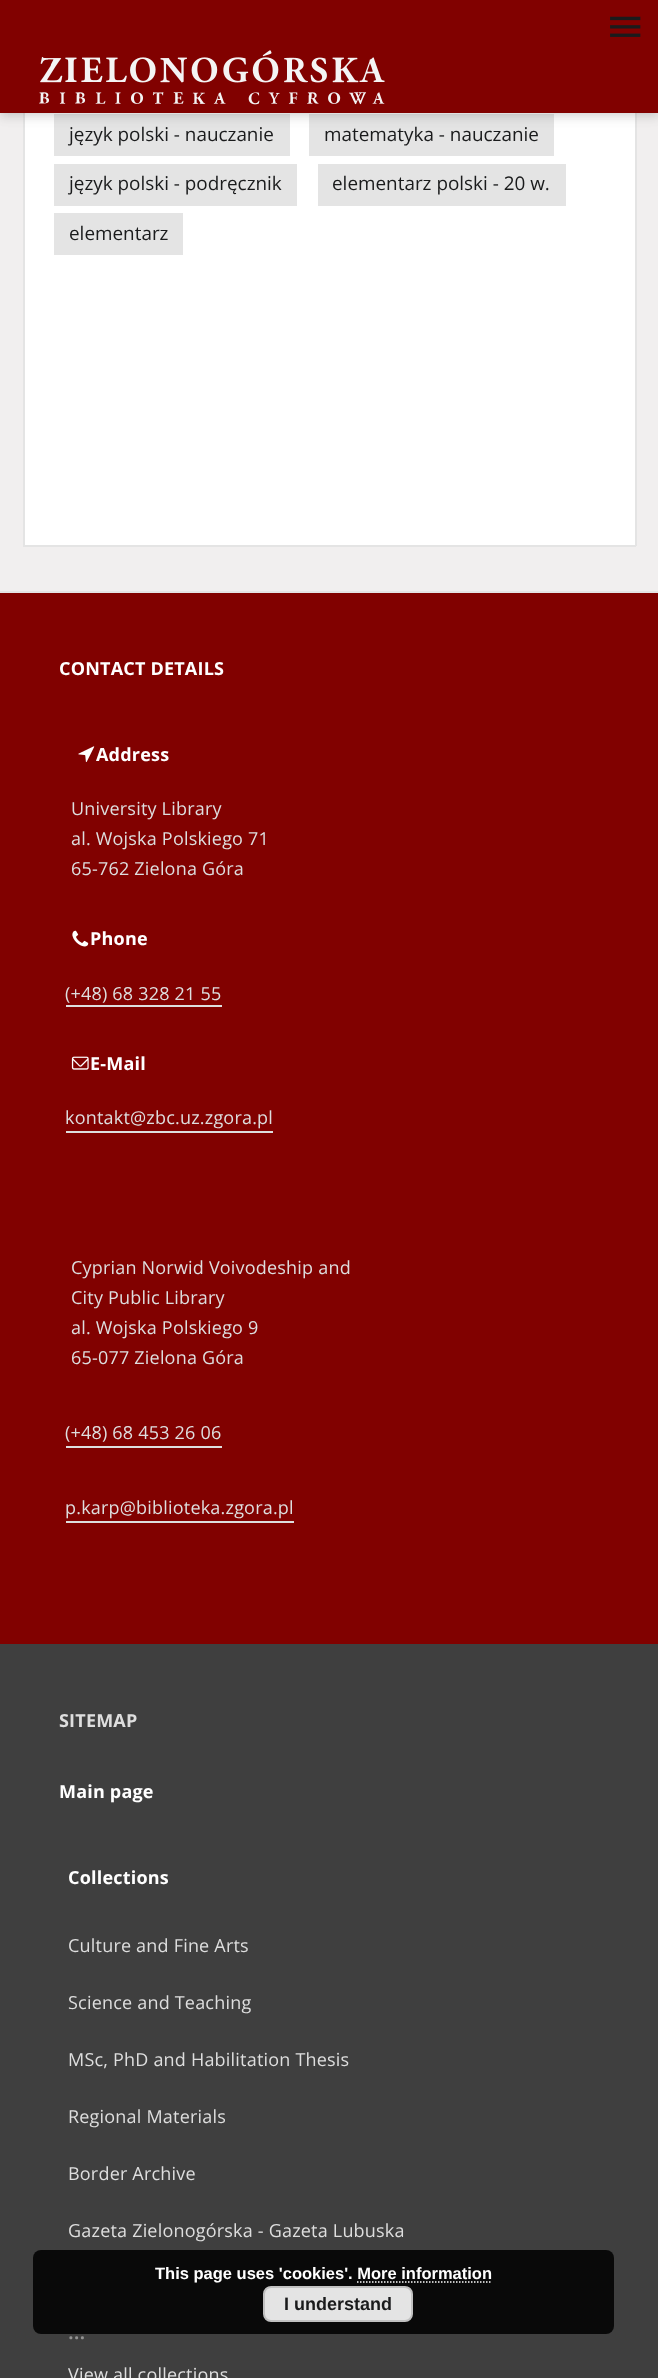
<svg xmlns="http://www.w3.org/2000/svg" width="658" height="2378" viewBox="0 0 658 2378">
  <defs>
    <filter id="blur1" x="-50%" y="-200%" width="200%" height="500%"><feGaussianBlur stdDeviation="7.5"/></filter>
    <filter id="blur2" x="-50%" y="-200%" width="200%" height="500%"><feGaussianBlur stdDeviation="4"/></filter>
    <filter id="blur3" x="-50%" y="-200%" width="200%" height="500%"><feGaussianBlur stdDeviation="3"/></filter>
  </defs>
  <rect width="100%" height="100%" fill="#f1efef"/>
  <rect x="25" y="113" width="610" height="432" fill="#ffffff"/>
  <rect x="635" y="113" width="2" height="433" fill="#e4e4e4"/>
  <rect x="23" y="545" width="613" height="2" fill="#e4e4e4"/>
  <rect x="23" y="113" width="2" height="433" fill="#e4e4e4"/>
  <rect x="54" y="114" width="236" height="42" fill="#e4e4e4"/>
  <rect x="309" y="114" width="245" height="42" fill="#e4e4e4"/>
  <rect x="0" y="2" width="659" height="112" fill="#000000" fill-opacity="0.08" filter="url(#blur1)"/>
  <rect x="0" y="6" width="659" height="113" fill="#000000" fill-opacity="0.06" filter="url(#blur2)"/>
  <rect x="2" y="5" width="655" height="109" fill="#000000" fill-opacity="0.06" filter="url(#blur3)"/>
  <rect x="0" y="0" width="658" height="113" fill="#810100"/>
  <image x="610" y="16" width="31" height="21" href="img1.png"/>
  <image x="39" y="50" width="346" height="55" href="img2.png"/>
  <text x="69" y="141" font-family="Open Sans" font-size="18.9" fill="#1a1b1c">język polski - nauczanie</text>
  <text x="324" y="141" font-family="Open Sans" font-size="18.9" fill="#1a1b1c">matematyka - nauczanie</text>
  <rect x="54" y="164" width="243" height="42" fill="#e4e4e4"/>
  <text x="69" y="190" font-family="Open Sans" font-size="18.9" fill="#1a1b1c">język polski - podręcznik</text>
  <rect x="318" y="164" width="248" height="42" fill="#e4e4e4"/>
  <text x="332" y="190" font-family="Open Sans" font-size="18.9" fill="#1a1b1c">elementarz polski - 20 w.</text>
  <rect x="54" y="213" width="129" height="42" fill="#e4e4e4"/>
  <text x="69" y="240" font-family="Open Sans" font-size="18.9" fill="#1a1b1c">elementarz</text>
  <rect x="0" y="593" width="658" height="1051" fill="#810100"/>
  <rect x="0" y="591" width="658" height="2" fill="#e4e4e4"/>
  <text x="59" y="675" font-family="Open Sans" font-size="18" font-weight="bold" letter-spacing="0.2" fill="#ffffff">CONTACT DETAILS</text>
  <image x="78" y="746" width="17" height="16" href="img3.png"/>
  <text x="96" y="761" font-family="Open Sans" font-size="18" font-weight="bold" letter-spacing="0.2" fill="#ffffff">Address</text>
  <text x="71" y="815" font-family="Open Sans" font-size="18" letter-spacing="0.2" fill="#dedede">University Library</text>
  <text x="71" y="845" font-family="Open Sans" font-size="18" letter-spacing="0.2" fill="#dedede">al. Wojska Polskiego 71</text>
  <text x="71" y="875" font-family="Open Sans" font-size="18" letter-spacing="0.2" fill="#dedede">65-762 Zielona Góra</text>
  <image x="72" y="930" width="17" height="17" href="img4.png"/>
  <text x="90" y="945" font-family="Open Sans" font-size="18" font-weight="bold" letter-spacing="0.2" fill="#ffffff">Phone</text>
  <text x="65" y="1000" font-family="Open Sans" font-size="18" letter-spacing="0.2" fill="#dedede">(+48) 68 328 21 55</text>
  <rect x="66" y="1005" width="156" height="2" fill="#dedede"/>
  <image x="71" y="1056" width="18" height="14" href="img5.png"/>
  <text x="90" y="1070" font-family="Open Sans" font-size="18" font-weight="bold" letter-spacing="0.2" fill="#ffffff">E-Mail</text>
  <text x="65" y="1124" font-family="Open Sans" font-size="18" letter-spacing="0.2" fill="#dedede">kontakt@zbc.uz.zgora.pl</text>
  <rect x="66" y="1131" width="207" height="2" fill="#dedede"/>
  <text x="71" y="1274" font-family="Open Sans" font-size="18" letter-spacing="0.2" fill="#dedede">Cyprian Norwid Voivodeship and</text>
  <text x="71" y="1304" font-family="Open Sans" font-size="18" letter-spacing="0.2" fill="#dedede">City Public Library</text>
  <text x="71" y="1334" font-family="Open Sans" font-size="18" letter-spacing="0.2" fill="#dedede">al. Wojska Polskiego 9</text>
  <text x="71" y="1364" font-family="Open Sans" font-size="18" letter-spacing="0.2" fill="#dedede">65-077 Zielona Góra</text>
  <text x="65" y="1439" font-family="Open Sans" font-size="18" letter-spacing="0.2" fill="#dedede">(+48) 68 453 26 06</text>
  <rect x="66" y="1446" width="156" height="2" fill="#dedede"/>
  <text x="65" y="1514" font-family="Open Sans" font-size="18" letter-spacing="0.2" fill="#dedede">p.karp@biblioteka.zgora.pl</text>
  <rect x="66" y="1521" width="228" height="2" fill="#dedede"/>
  <rect x="0" y="1644" width="658" height="734" fill="#3f3f3f"/>
  <text x="59" y="1727" font-family="Open Sans" font-size="18" font-weight="bold" letter-spacing="0.2" fill="#dedede">SITEMAP</text>
  <text x="59" y="1798" font-family="Open Sans" font-size="18" font-weight="bold" letter-spacing="0.2" fill="#ffffff">Main page</text>
  <text x="68" y="1884" font-family="Open Sans" font-size="18" font-weight="bold" letter-spacing="0.2" fill="#ffffff">Collections</text>
  <text x="68" y="1952" font-family="Open Sans" font-size="18" letter-spacing="0.2" fill="#dedede">Culture and Fine Arts</text>
  <text x="68" y="2009" font-family="Open Sans" font-size="18" letter-spacing="0.2" fill="#dedede">Science and Teaching</text>
  <text x="68" y="2066" font-family="Open Sans" font-size="18" letter-spacing="0.2" fill="#dedede">MSc, PhD and Habilitation Thesis</text>
  <text x="68" y="2123" font-family="Open Sans" font-size="18" letter-spacing="0.2" fill="#dedede">Regional Materials</text>
  <text x="68" y="2180" font-family="Open Sans" font-size="18" letter-spacing="0.2" fill="#dedede">Border Archive</text>
  <text x="68" y="2237" font-family="Open Sans" font-size="18" letter-spacing="0.2" fill="#dedede">Gazeta Zielonogórska - Gazeta Lubuska</text>
  <text x="68" y="2339" font-family="Open Sans" font-size="21" font-weight="600" fill="#939393">...</text>
  <text x="68" y="2381" font-family="Open Sans" font-size="18" letter-spacing="0.2" fill="#dedede">View all collections</text>
  <rect x="33" y="2250" width="581" height="84" rx="8" fill="#000000" fill-opacity="0.85"/>
  <text x="155" y="2279" font-family="Liberation Sans" font-size="16.5" font-weight="bold" fill="#ffffff">This page uses 'cookies'. More information</text>
  <path d="M357 2282H492" fill="none" stroke="#ffffff" stroke-width="1.5" stroke-dasharray="1.5 1.5"/>
  <rect x="264" y="2287" width="148" height="34" rx="7" fill="#e4e4e4" stroke="#c1c1c1" stroke-width="2"/>
  <text x="284" y="2310" font-family="Liberation Sans" font-size="18" font-weight="bold" fill="#1a1b1c">I understand</text>
</svg>
